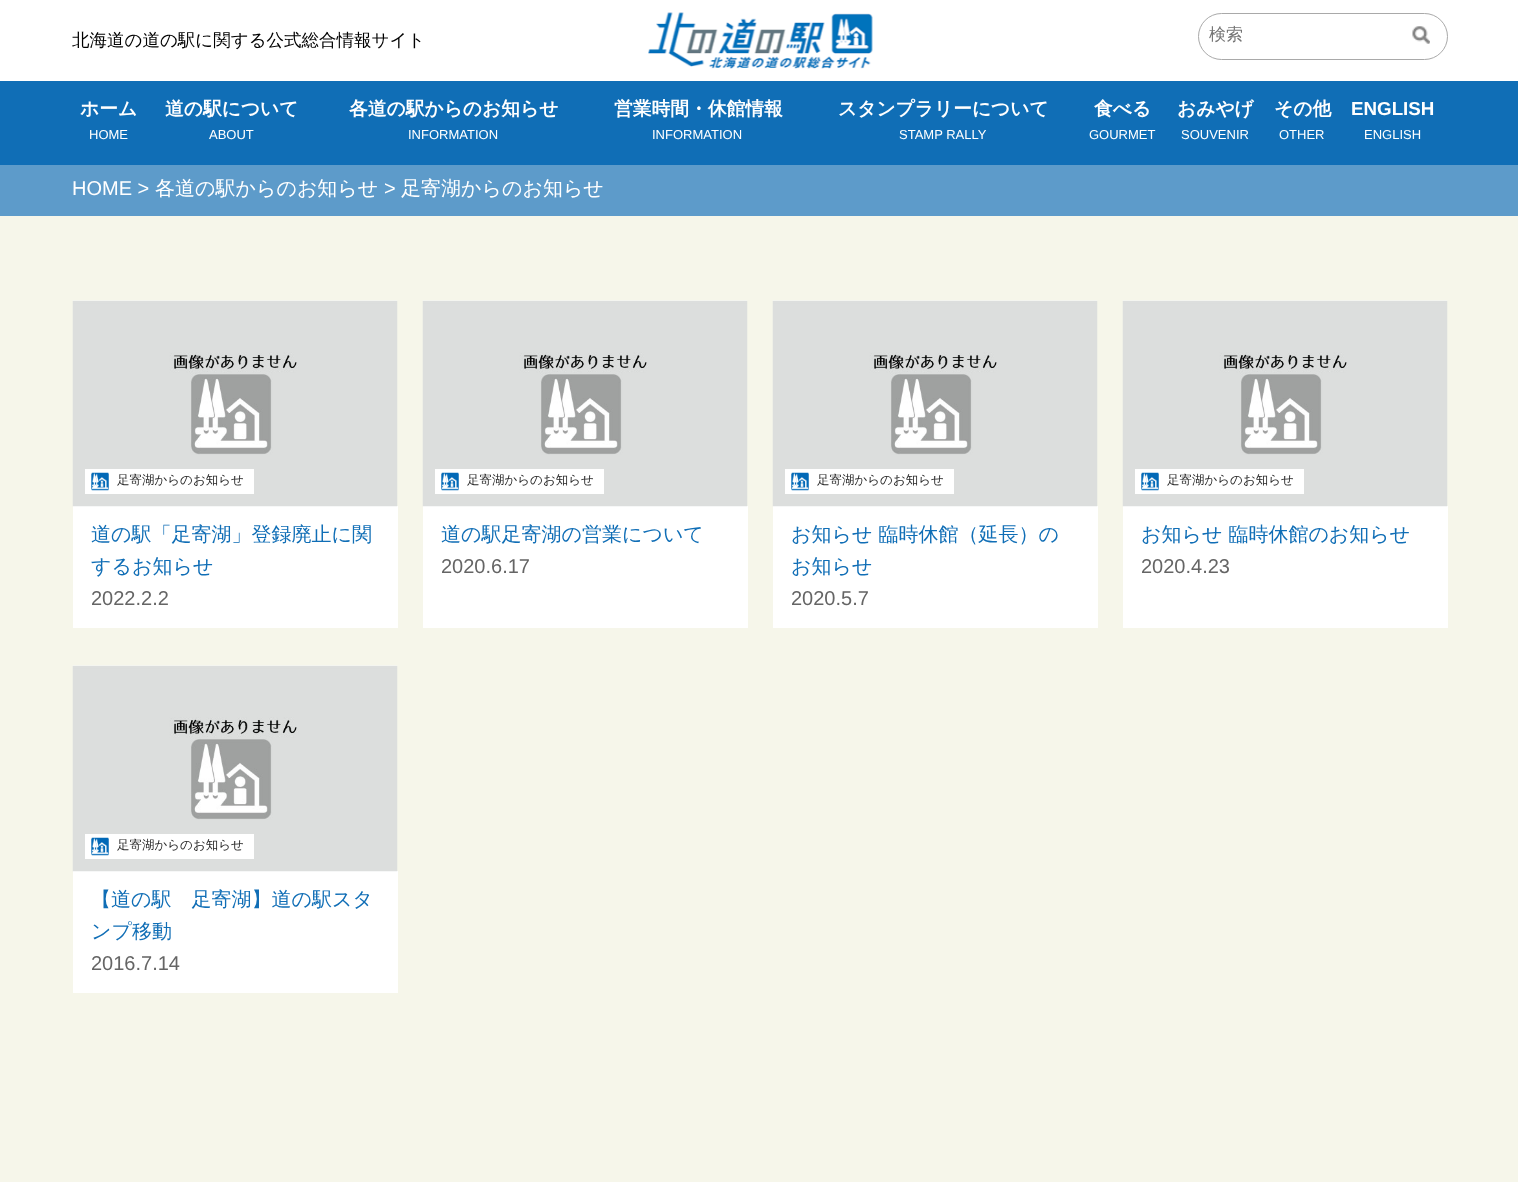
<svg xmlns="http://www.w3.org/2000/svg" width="1518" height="1182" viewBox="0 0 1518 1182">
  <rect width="100%" height="100%" fill="#f6f6ea"/>
  <rect x="0" y="0" width="1518" height="81" fill="#ffffff"/>
  <text x="72" y="46" font-family="WenQuanYi Zen Hei" font-size="17.5" font-weight="500" fill="#000000">北海道の道の駅に関する公式総合情報サイト</text>
  <image x="648" y="12" width="225" height="57" href="img1.png"/>
  <rect x="1198.5" y="13.5" width="249" height="46" rx="23" fill="none" stroke="#a9a9a9"/>
  <text x="1209" y="40" font-family="WenQuanYi Zen Hei" font-size="17" font-weight="500" fill="#757575">検索</text>
  <image x="1412" y="26" width="18" height="18" href="img2.png"/>
  <rect x="0" y="81" width="1518" height="84" fill="#106eb6"/>
  <text x="80" y="115" font-family="WenQuanYi Zen Hei" font-size="18.75" font-weight="bold" fill="#ffffff">ホーム</text>
  <text x="89" y="139" font-family="Liberation Sans" font-size="13" fill="#ffffff">HOME</text>
  <text x="165" y="115" font-family="WenQuanYi Zen Hei" font-size="18.75" font-weight="bold" fill="#ffffff">道の駅について</text>
  <text x="209" y="139" font-family="Liberation Sans" font-size="13" fill="#ffffff">ABOUT</text>
  <text x="349" y="115" font-family="WenQuanYi Zen Hei" font-size="18.75" font-weight="bold" fill="#ffffff">各道の駅からのお知らせ</text>
  <text x="408" y="139" font-family="Liberation Sans" font-size="13" fill="#ffffff">INFORMATION</text>
  <text x="614" y="115" font-family="WenQuanYi Zen Hei" font-size="18.75" font-weight="bold" fill="#ffffff">営業時間・休館情報</text>
  <text x="652" y="139" font-family="Liberation Sans" font-size="13" fill="#ffffff">INFORMATION</text>
  <text x="838" y="115" font-family="WenQuanYi Zen Hei" font-size="18.75" font-weight="bold" fill="#ffffff">スタンプラリーについて</text>
  <text x="899" y="139" font-family="Liberation Sans" font-size="13" fill="#ffffff">STAMP RALLY</text>
  <text x="1094" y="115" font-family="WenQuanYi Zen Hei" font-size="18.75" font-weight="bold" fill="#ffffff">食べる</text>
  <text x="1089" y="139" font-family="Liberation Sans" font-size="13" fill="#ffffff">GOURMET</text>
  <text x="1177" y="115" font-family="WenQuanYi Zen Hei" font-size="18.75" font-weight="bold" fill="#ffffff">おみやげ</text>
  <text x="1181" y="139" font-family="Liberation Sans" font-size="13" fill="#ffffff">SOUVENIR</text>
  <text x="1274" y="115" font-family="WenQuanYi Zen Hei" font-size="18.75" font-weight="bold" fill="#ffffff">その他</text>
  <text x="1279" y="139" font-family="Liberation Sans" font-size="13" fill="#ffffff">OTHER</text>
  <text x="1351" y="115" font-family="Liberation Sans" font-size="18.75" font-weight="bold" fill="#ffffff">ENGLISH</text>
  <text x="1364" y="139" font-family="Liberation Sans" font-size="13" fill="#ffffff">ENGLISH</text>
  <rect x="0" y="165" width="1518" height="51" fill="#5d9bca"/>
  <text x="72" y="195" font-family="Liberation Sans" font-size="20" fill="#ffffff">HOME &gt;</text>
  <text x="155" y="195" font-family="WenQuanYi Zen Hei" font-size="20" font-weight="500" fill="#ffffff">各道の駅からのお知らせ</text>
  <text x="384" y="195" font-family="Liberation Sans" font-size="20" fill="#ffffff">&gt;</text>
  <text x="401" y="195" font-family="WenQuanYi Zen Hei" font-size="20" font-weight="500" fill="#ffffff">足寄湖からのお知らせ</text>
  <rect x="73" y="506" width="325" height="122" fill="#ffffff"/>
  <image x="72" y="300" width="326" height="207" href="img3.png"/>
  <rect x="85" y="469" width="169" height="25" fill="#ffffff"/>
  <image x="91" y="472" width="18" height="19" href="img4.png"/>
  <text x="117" y="484" font-family="WenQuanYi Zen Hei" font-size="12.5" font-weight="500" fill="#272727">足寄湖からのお知らせ</text>
  <text x="91" y="541" font-family="WenQuanYi Zen Hei" font-size="20" font-weight="500" fill="#106eb6">道の駅「足寄湖」登録廃止に関</text>
  <text x="91" y="573" font-family="WenQuanYi Zen Hei" font-size="20" font-weight="500" fill="#106eb6">するお知らせ</text>
  <text x="91" y="605" font-family="Liberation Sans" font-size="20" fill="#656565">2022.2.2</text>
  <rect x="423" y="506" width="325" height="122" fill="#ffffff"/>
  <image x="422" y="300" width="326" height="207" href="img3.png"/>
  <rect x="435" y="469" width="169" height="25" fill="#ffffff"/>
  <image x="441" y="472" width="18" height="19" href="img4.png"/>
  <text x="467" y="484" font-family="WenQuanYi Zen Hei" font-size="12.5" font-weight="500" fill="#272727">足寄湖からのお知らせ</text>
  <text x="441" y="541" font-family="WenQuanYi Zen Hei" font-size="20" font-weight="500" fill="#106eb6">道の駅足寄湖の営業について</text>
  <text x="441" y="573" font-family="Liberation Sans" font-size="20" fill="#656565">2020.6.17</text>
  <rect x="773" y="506" width="325" height="122" fill="#ffffff"/>
  <image x="772" y="300" width="326" height="207" href="img3.png"/>
  <rect x="785" y="469" width="169" height="25" fill="#ffffff"/>
  <image x="791" y="472" width="18" height="19" href="img4.png"/>
  <text x="817" y="484" font-family="WenQuanYi Zen Hei" font-size="12.5" font-weight="500" fill="#272727">足寄湖からのお知らせ</text>
  <text x="791" y="541" font-family="WenQuanYi Zen Hei" font-size="20" font-weight="500" fill="#106eb6">お知らせ 臨時休館（延長）の</text>
  <text x="791" y="573" font-family="WenQuanYi Zen Hei" font-size="20" font-weight="500" fill="#106eb6">お知らせ</text>
  <text x="791" y="605" font-family="Liberation Sans" font-size="20" fill="#656565">2020.5.7</text>
  <rect x="1123" y="506" width="325" height="122" fill="#ffffff"/>
  <image x="1122" y="300" width="326" height="207" href="img3.png"/>
  <rect x="1135" y="469" width="169" height="25" fill="#ffffff"/>
  <image x="1141" y="472" width="18" height="19" href="img4.png"/>
  <text x="1167" y="484" font-family="WenQuanYi Zen Hei" font-size="12.5" font-weight="500" fill="#272727">足寄湖からのお知らせ</text>
  <text x="1141" y="541" font-family="WenQuanYi Zen Hei" font-size="20" font-weight="500" fill="#106eb6">お知らせ 臨時休館のお知らせ</text>
  <text x="1141" y="573" font-family="Liberation Sans" font-size="20" fill="#656565">2020.4.23</text>
  <rect x="73" y="871" width="325" height="122" fill="#ffffff"/>
  <image x="72" y="665" width="326" height="207" href="img3.png"/>
  <rect x="85" y="834" width="169" height="25" fill="#ffffff"/>
  <image x="91" y="837" width="18" height="19" href="img4.png"/>
  <text x="117" y="849" font-family="WenQuanYi Zen Hei" font-size="12.5" font-weight="500" fill="#272727">足寄湖からのお知らせ</text>
  <text x="91" y="906" font-family="WenQuanYi Zen Hei" font-size="20" font-weight="500" fill="#106eb6">【道の駅　足寄湖】道の駅スタ</text>
  <text x="91" y="938" font-family="WenQuanYi Zen Hei" font-size="20" font-weight="500" fill="#106eb6">ンプ移動</text>
  <text x="91" y="970" font-family="Liberation Sans" font-size="20" fill="#656565">2016.7.14</text>
</svg>
